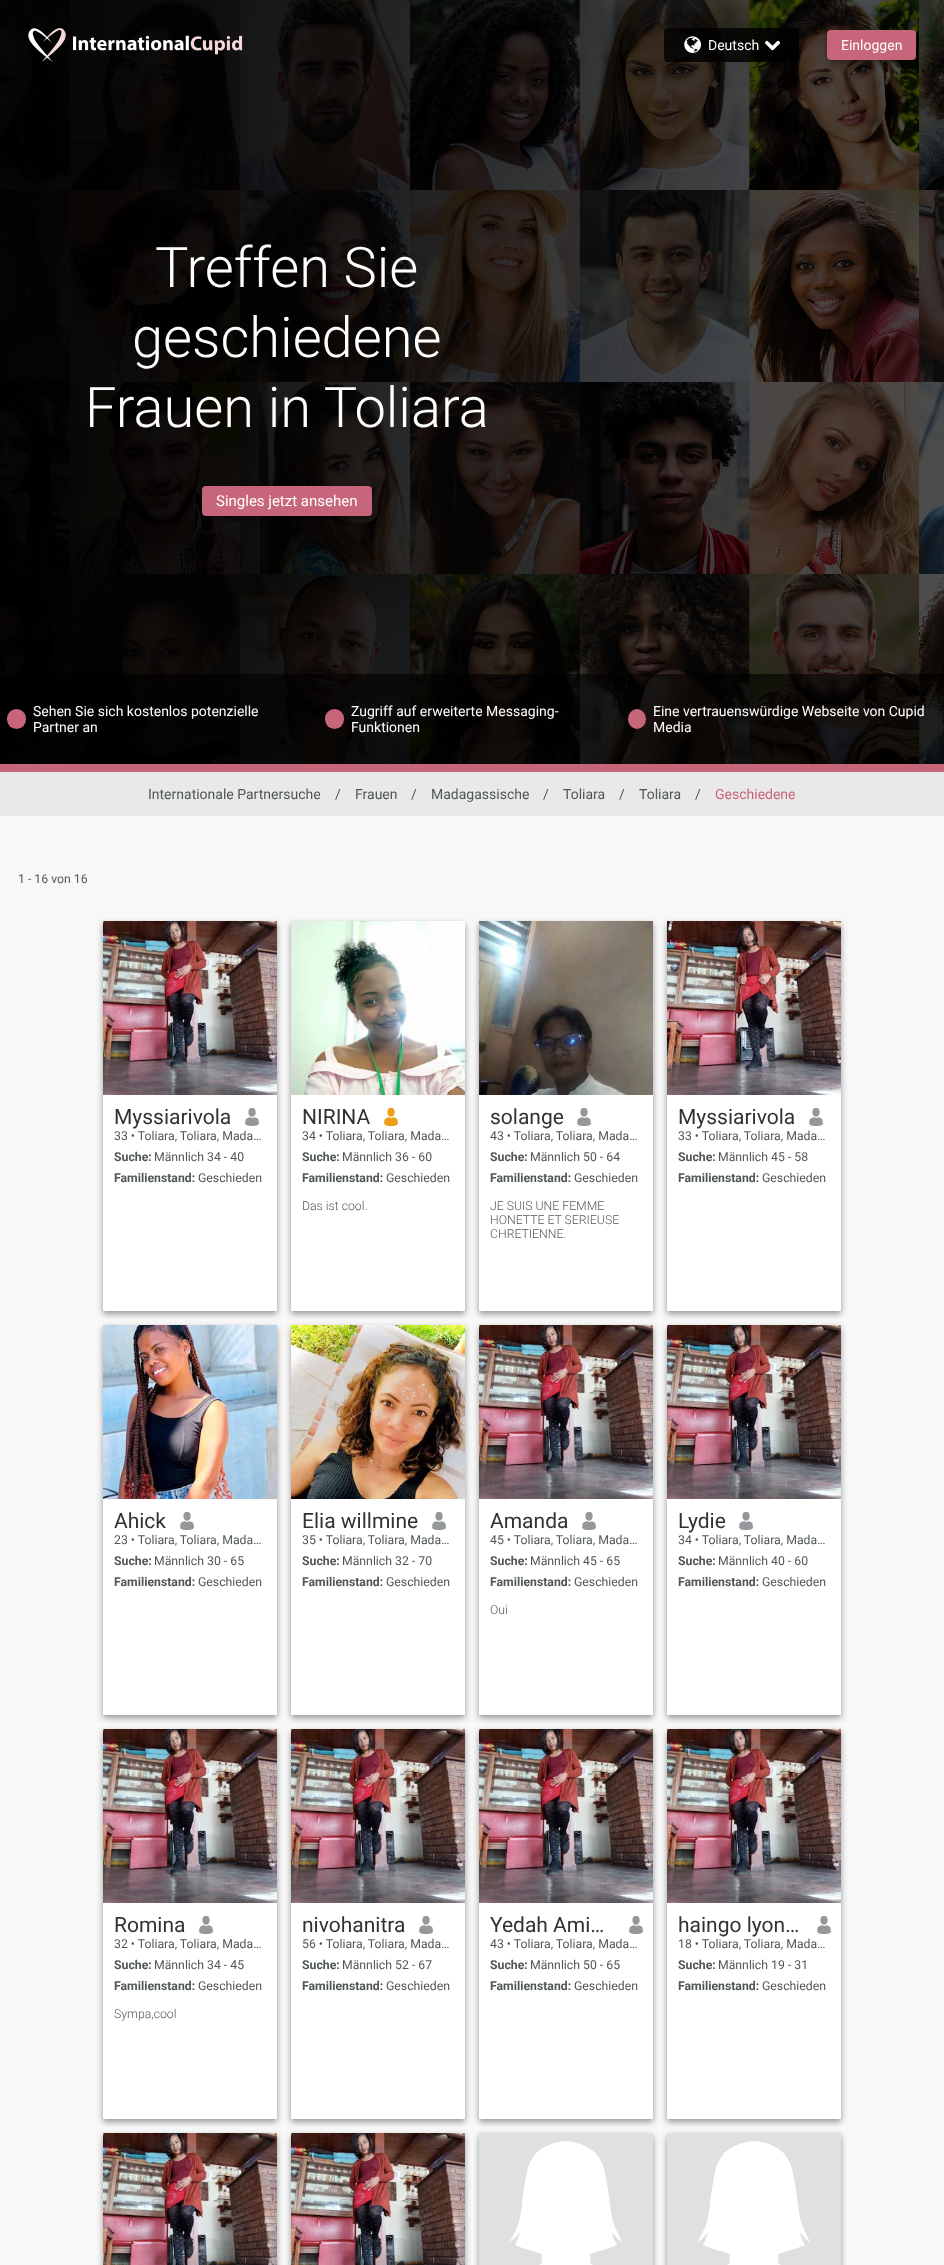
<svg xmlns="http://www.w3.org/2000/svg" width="944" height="2265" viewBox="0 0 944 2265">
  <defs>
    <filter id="blur1" x="-50%" y="-200%" width="200%" height="500%"><feGaussianBlur stdDeviation="3"/></filter>
  </defs>
  <rect width="100%" height="100%" fill="#f8f8f8"/>
  <image x="0" y="0" width="944" height="764" href="img5.png"/>
  <image x="28" y="28" width="38" height="34" href="img1.png"/>
  <image x="73" y="35" width="170" height="20" href="img2.png"/>
  <rect x="664" y="28" width="135" height="34" rx="4" fill="#000000" fill-opacity="0.8"/>
  <image x="684" y="36" width="17" height="17" href="img3.png"/>
  <text x="708" y="50" font-family="Roboto" font-size="14" fill="#ffffff">Deutsch</text>
  <image x="765" y="40" width="15" height="11" href="img4.png"/>
  <rect x="827" y="33" width="89" height="30" rx="4" fill="#000000" fill-opacity="0.4" filter="url(#blur1)"/>
  <rect x="827" y="30" width="89" height="30" rx="4" fill="#c7657b"/>
  <text x="841" y="50" font-family="Roboto" font-size="14" fill="#ffffff">Einloggen</text>
  <text x="155" y="287" font-family="Roboto" font-size="56" font-weight="300" fill="#ffffff">Treffen Sie</text>
  <text x="132" y="357" font-family="Roboto" font-size="56" font-weight="300" fill="#ffffff">geschiedene</text>
  <text x="85" y="427" font-family="Roboto" font-size="56" font-weight="300" fill="#ffffff">Frauen in Toliara</text>
  <rect x="202" y="489" width="170" height="30" rx="4" fill="#000000" fill-opacity="0.4" filter="url(#blur1)"/>
  <rect x="202" y="486" width="170" height="30" rx="4" fill="#c7657b"/>
  <text x="216" y="506" font-family="Roboto" font-size="15" fill="#ffffff">Singles jetzt ansehen</text>
  <rect x="0" y="674" width="944" height="90" fill="#000000" fill-opacity="0.6"/>
  <rect x="7" y="709" width="19" height="20" rx="9.5" fill="#c7657b"/>
  <text x="33" y="716" font-family="Roboto" font-size="14" fill="#ffffff">Sehen Sie sich kostenlos potenzielle</text>
  <text x="33" y="732" font-family="Roboto" font-size="14" fill="#ffffff">Partner an</text>
  <rect x="325" y="709" width="19" height="20" rx="9.5" fill="#c7657b"/>
  <text x="351" y="716" font-family="Roboto" font-size="14" fill="#ffffff">Zugriff auf erweiterte Messaging-</text>
  <text x="351" y="732" font-family="Roboto" font-size="14" fill="#ffffff">Funktionen</text>
  <ellipse cx="637" cy="719" rx="9" ry="10" fill="#c7657b"/>
  <text x="653" y="716" font-family="Roboto" font-size="14" fill="#ffffff">Eine vertrauenswürdige Webseite von Cupid</text>
  <text x="653" y="732" font-family="Roboto" font-size="14" fill="#ffffff">Media</text>
  <rect x="0" y="764" width="944" height="8" fill="#c7657b"/>
  <rect x="0" y="772" width="944" height="44" fill="#e9e9e9"/>
  <text x="148" y="799" font-family="Roboto" font-size="14" fill="#505656">Internationale Partnersuche</text>
  <text x="335" y="799" font-family="Roboto" font-size="14" fill="#505656">/</text>
  <text x="355" y="799" font-family="Roboto" font-size="14" fill="#505656">Frauen</text>
  <text x="411" y="799" font-family="Roboto" font-size="14" fill="#505656">/</text>
  <text x="431" y="799" font-family="Roboto" font-size="14" fill="#505656">Madagassische</text>
  <text x="543" y="799" font-family="Roboto" font-size="14" fill="#505656">/</text>
  <text x="563" y="799" font-family="Roboto" font-size="14" fill="#505656">Toliara</text>
  <text x="619" y="799" font-family="Roboto" font-size="14" fill="#505656">/</text>
  <text x="639" y="799" font-family="Roboto" font-size="14" fill="#505656">Toliara</text>
  <text x="695" y="799" font-family="Roboto" font-size="14" fill="#505656">/</text>
  <text x="715" y="799" font-family="Roboto" font-size="14" fill="#c7657b">Geschiedene</text>
  <text x="18" y="883" font-family="Roboto" font-size="12.25" fill="#505656">1 - 16 von 16</text>
  <rect x="103" y="924" width="174" height="390" fill="#000000" fill-opacity="0.4" filter="url(#blur1)"/>
  <rect x="103" y="1095" width="174" height="216" fill="#ffffff"/>
  <image x="103" y="921" width="174" height="174" href="img6.png"/>
  <text x="114" y="1124" font-family="Roboto" font-size="21" fill="#323232">Myssiarivola</text>
  <image x="245" y="1108" width="14" height="18" href="img7.png"/>
  <text x="114" y="1140" font-family="Roboto" font-size="12.25" fill="#505656">33 • Toliara, Toliara, Mada…</text>
  <text x="114" y="1161" font-family="Roboto" font-size="12.25" font-weight="bold" fill="#505656">Suche:</text>
  <text x="154" y="1161" font-family="Roboto" font-size="12.25" fill="#505656">Männlich 34 - 40</text>
  <text x="114" y="1182" font-family="Roboto" font-size="12.25" font-weight="bold" fill="#505656">Familienstand:</text>
  <text x="198" y="1182" font-family="Roboto" font-size="12.25" fill="#505656">Geschieden</text>
  <rect x="291" y="924" width="174" height="390" fill="#000000" fill-opacity="0.4" filter="url(#blur1)"/>
  <rect x="291" y="1095" width="174" height="216" fill="#ffffff"/>
  <image x="291" y="921" width="174" height="174" href="img8.png"/>
  <text x="302" y="1124" font-family="Roboto" font-size="21" fill="#323232">NIRINA</text>
  <image x="384" y="1108" width="14" height="18" href="img9.png"/>
  <text x="302" y="1140" font-family="Roboto" font-size="12.25" fill="#505656">34 • Toliara, Toliara, Mada…</text>
  <text x="302" y="1161" font-family="Roboto" font-size="12.25" font-weight="bold" fill="#505656">Suche:</text>
  <text x="342" y="1161" font-family="Roboto" font-size="12.25" fill="#505656">Männlich 36 - 60</text>
  <text x="302" y="1182" font-family="Roboto" font-size="12.25" font-weight="bold" fill="#505656">Familienstand:</text>
  <text x="386" y="1182" font-family="Roboto" font-size="12.25" fill="#505656">Geschieden</text>
  <text x="302" y="1210" font-family="Roboto" font-size="12.25" font-weight="300" fill="#505656">Das ist cool.</text>
  <rect x="479" y="924" width="174" height="390" fill="#000000" fill-opacity="0.4" filter="url(#blur1)"/>
  <rect x="479" y="1095" width="174" height="216" fill="#ffffff"/>
  <image x="479" y="921" width="174" height="174" href="img10.png"/>
  <text x="490" y="1124" font-family="Roboto" font-size="21" fill="#323232">solange</text>
  <image x="577" y="1108" width="14" height="18" href="img11.png"/>
  <text x="490" y="1140" font-family="Roboto" font-size="12.25" fill="#505656">43 • Toliara, Toliara, Mada…</text>
  <text x="490" y="1161" font-family="Roboto" font-size="12.25" font-weight="bold" fill="#505656">Suche:</text>
  <text x="530" y="1161" font-family="Roboto" font-size="12.25" fill="#505656">Männlich 50 - 64</text>
  <text x="490" y="1182" font-family="Roboto" font-size="12.25" font-weight="bold" fill="#505656">Familienstand:</text>
  <text x="574" y="1182" font-family="Roboto" font-size="12.25" fill="#505656">Geschieden</text>
  <text x="490" y="1210" font-family="Roboto" font-size="12.25" font-weight="300" fill="#505656">JE SUIS UNE FEMME</text>
  <text x="490" y="1224" font-family="Roboto" font-size="12.25" font-weight="300" fill="#505656">HONETTE ET SERIEUSE</text>
  <text x="490" y="1238" font-family="Roboto" font-size="12.25" font-weight="300" fill="#505656">CHRETIENNE.</text>
  <rect x="667" y="924" width="174" height="390" fill="#000000" fill-opacity="0.4" filter="url(#blur1)"/>
  <rect x="667" y="1095" width="174" height="216" fill="#ffffff"/>
  <image x="667" y="921" width="174" height="174" href="img12.png"/>
  <text x="678" y="1124" font-family="Roboto" font-size="21" fill="#323232">Myssiarivola</text>
  <image x="809" y="1108" width="14" height="18" href="img11.png"/>
  <text x="678" y="1140" font-family="Roboto" font-size="12.25" fill="#505656">33 • Toliara, Toliara, Mada…</text>
  <text x="678" y="1161" font-family="Roboto" font-size="12.25" font-weight="bold" fill="#505656">Suche:</text>
  <text x="718" y="1161" font-family="Roboto" font-size="12.25" fill="#505656">Männlich 45 - 58</text>
  <text x="678" y="1182" font-family="Roboto" font-size="12.25" font-weight="bold" fill="#505656">Familienstand:</text>
  <text x="762" y="1182" font-family="Roboto" font-size="12.25" fill="#505656">Geschieden</text>
  <rect x="103" y="1328" width="174" height="390" fill="#000000" fill-opacity="0.4" filter="url(#blur1)"/>
  <rect x="103" y="1499" width="174" height="216" fill="#ffffff"/>
  <image x="103" y="1325" width="174" height="174" href="img13.png"/>
  <text x="114" y="1528" font-family="Roboto" font-size="21" fill="#323232">Ahick</text>
  <image x="180" y="1512" width="14" height="18" href="img14.png"/>
  <text x="114" y="1544" font-family="Roboto" font-size="12.25" fill="#505656">23 • Toliara, Toliara, Mada…</text>
  <text x="114" y="1565" font-family="Roboto" font-size="12.25" font-weight="bold" fill="#505656">Suche:</text>
  <text x="154" y="1565" font-family="Roboto" font-size="12.25" fill="#505656">Männlich 30 - 65</text>
  <text x="114" y="1586" font-family="Roboto" font-size="12.25" font-weight="bold" fill="#505656">Familienstand:</text>
  <text x="198" y="1586" font-family="Roboto" font-size="12.25" fill="#505656">Geschieden</text>
  <rect x="291" y="1328" width="174" height="390" fill="#000000" fill-opacity="0.4" filter="url(#blur1)"/>
  <rect x="291" y="1499" width="174" height="216" fill="#ffffff"/>
  <image x="291" y="1325" width="174" height="174" href="img15.png"/>
  <text x="302" y="1528" font-family="Roboto" font-size="21" fill="#323232">Elia willmine</text>
  <image x="432" y="1512" width="14" height="18" href="img14.png"/>
  <text x="302" y="1544" font-family="Roboto" font-size="12.25" fill="#505656">35 • Toliara, Toliara, Mada…</text>
  <text x="302" y="1565" font-family="Roboto" font-size="12.25" font-weight="bold" fill="#505656">Suche:</text>
  <text x="342" y="1565" font-family="Roboto" font-size="12.25" fill="#505656">Männlich 32 - 70</text>
  <text x="302" y="1586" font-family="Roboto" font-size="12.25" font-weight="bold" fill="#505656">Familienstand:</text>
  <text x="386" y="1586" font-family="Roboto" font-size="12.25" fill="#505656">Geschieden</text>
  <rect x="479" y="1328" width="174" height="390" fill="#000000" fill-opacity="0.4" filter="url(#blur1)"/>
  <rect x="479" y="1499" width="174" height="216" fill="#ffffff"/>
  <image x="479" y="1325" width="174" height="174" href="img16.png"/>
  <text x="490" y="1528" font-family="Roboto" font-size="21" fill="#323232">Amanda</text>
  <image x="582" y="1512" width="14" height="18" href="img14.png"/>
  <text x="490" y="1544" font-family="Roboto" font-size="12.25" fill="#505656">45 • Toliara, Toliara, Mada…</text>
  <text x="490" y="1565" font-family="Roboto" font-size="12.25" font-weight="bold" fill="#505656">Suche:</text>
  <text x="530" y="1565" font-family="Roboto" font-size="12.25" fill="#505656">Männlich 45 - 65</text>
  <text x="490" y="1586" font-family="Roboto" font-size="12.25" font-weight="bold" fill="#505656">Familienstand:</text>
  <text x="574" y="1586" font-family="Roboto" font-size="12.25" fill="#505656">Geschieden</text>
  <text x="490" y="1614" font-family="Roboto" font-size="12.25" font-weight="300" fill="#505656">Oui</text>
  <rect x="667" y="1328" width="174" height="390" fill="#000000" fill-opacity="0.4" filter="url(#blur1)"/>
  <rect x="667" y="1499" width="174" height="216" fill="#ffffff"/>
  <image x="667" y="1325" width="174" height="174" href="img17.png"/>
  <text x="678" y="1528" font-family="Roboto" font-size="21" fill="#323232">Lydie</text>
  <image x="739" y="1512" width="14" height="18" href="img14.png"/>
  <text x="678" y="1544" font-family="Roboto" font-size="12.25" fill="#505656">34 • Toliara, Toliara, Mada…</text>
  <text x="678" y="1565" font-family="Roboto" font-size="12.25" font-weight="bold" fill="#505656">Suche:</text>
  <text x="718" y="1565" font-family="Roboto" font-size="12.25" fill="#505656">Männlich 40 - 60</text>
  <text x="678" y="1586" font-family="Roboto" font-size="12.25" font-weight="bold" fill="#505656">Familienstand:</text>
  <text x="762" y="1586" font-family="Roboto" font-size="12.25" fill="#505656">Geschieden</text>
  <rect x="103" y="1732" width="174" height="390" fill="#000000" fill-opacity="0.4" filter="url(#blur1)"/>
  <rect x="103" y="1903" width="174" height="216" fill="#ffffff"/>
  <image x="103" y="1729" width="174" height="174" href="img18.png"/>
  <text x="114" y="1932" font-family="Roboto" font-size="21" fill="#323232">Romina</text>
  <image x="199" y="1916" width="14" height="18" href="img11.png"/>
  <text x="114" y="1948" font-family="Roboto" font-size="12.25" fill="#505656">32 • Toliara, Toliara, Mada…</text>
  <text x="114" y="1969" font-family="Roboto" font-size="12.25" font-weight="bold" fill="#505656">Suche:</text>
  <text x="154" y="1969" font-family="Roboto" font-size="12.25" fill="#505656">Männlich 34 - 45</text>
  <text x="114" y="1990" font-family="Roboto" font-size="12.25" font-weight="bold" fill="#505656">Familienstand:</text>
  <text x="198" y="1990" font-family="Roboto" font-size="12.25" fill="#505656">Geschieden</text>
  <text x="114" y="2018" font-family="Roboto" font-size="12.25" font-weight="300" fill="#505656">Sympa,cool</text>
  <rect x="291" y="1732" width="174" height="390" fill="#000000" fill-opacity="0.4" filter="url(#blur1)"/>
  <rect x="291" y="1903" width="174" height="216" fill="#ffffff"/>
  <image x="291" y="1729" width="174" height="174" href="img16.png"/>
  <text x="302" y="1932" font-family="Roboto" font-size="21" fill="#323232">nivohanitra</text>
  <image x="419" y="1916" width="14" height="18" href="img11.png"/>
  <text x="302" y="1948" font-family="Roboto" font-size="12.25" fill="#505656">56 • Toliara, Toliara, Mada…</text>
  <text x="302" y="1969" font-family="Roboto" font-size="12.25" font-weight="bold" fill="#505656">Suche:</text>
  <text x="342" y="1969" font-family="Roboto" font-size="12.25" fill="#505656">Männlich 52 - 67</text>
  <text x="302" y="1990" font-family="Roboto" font-size="12.25" font-weight="bold" fill="#505656">Familienstand:</text>
  <text x="386" y="1990" font-family="Roboto" font-size="12.25" fill="#505656">Geschieden</text>
  <rect x="479" y="1732" width="174" height="390" fill="#000000" fill-opacity="0.4" filter="url(#blur1)"/>
  <rect x="479" y="1903" width="174" height="216" fill="#ffffff"/>
  <image x="479" y="1729" width="174" height="174" href="img16.png"/>
  <text x="490" y="1932" font-family="Roboto" font-size="21" fill="#323232">Yedah Ami…</text>
  <image x="629" y="1916" width="14" height="18" href="img11.png"/>
  <text x="490" y="1948" font-family="Roboto" font-size="12.25" fill="#505656">43 • Toliara, Toliara, Mada…</text>
  <text x="490" y="1969" font-family="Roboto" font-size="12.25" font-weight="bold" fill="#505656">Suche:</text>
  <text x="530" y="1969" font-family="Roboto" font-size="12.25" fill="#505656">Männlich 50 - 65</text>
  <text x="490" y="1990" font-family="Roboto" font-size="12.25" font-weight="bold" fill="#505656">Familienstand:</text>
  <text x="574" y="1990" font-family="Roboto" font-size="12.25" fill="#505656">Geschieden</text>
  <rect x="667" y="1732" width="174" height="390" fill="#000000" fill-opacity="0.4" filter="url(#blur1)"/>
  <rect x="667" y="1903" width="174" height="216" fill="#ffffff"/>
  <image x="667" y="1729" width="174" height="174" href="img17.png"/>
  <text x="678" y="1932" font-family="Roboto" font-size="21" fill="#323232">haingo lyon…</text>
  <image x="817" y="1916" width="14" height="18" href="img11.png"/>
  <text x="678" y="1948" font-family="Roboto" font-size="12.25" fill="#505656">18 • Toliara, Toliara, Mada…</text>
  <text x="678" y="1969" font-family="Roboto" font-size="12.25" font-weight="bold" fill="#505656">Suche:</text>
  <text x="718" y="1969" font-family="Roboto" font-size="12.25" fill="#505656">Männlich 19 - 31</text>
  <text x="678" y="1990" font-family="Roboto" font-size="12.25" font-weight="bold" fill="#505656">Familienstand:</text>
  <text x="762" y="1990" font-family="Roboto" font-size="12.25" fill="#505656">Geschieden</text>
  <rect x="103" y="2136" width="174" height="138" fill="#000000" fill-opacity="0.4" filter="url(#blur1)"/>
  <image x="103" y="2133" width="174" height="132" href="img19.png"/>
  <rect x="291" y="2136" width="174" height="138" fill="#000000" fill-opacity="0.4" filter="url(#blur1)"/>
  <image x="291" y="2133" width="174" height="132" href="img20.png"/>
  <rect x="479" y="2136" width="174" height="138" fill="#000000" fill-opacity="0.4" filter="url(#blur1)"/>
  <rect x="479" y="2133" width="174" height="132" fill="#e0e0e0"/>
  <image x="509" y="2141" width="113" height="124" href="img21.png"/>
  <rect x="667" y="2136" width="174" height="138" fill="#000000" fill-opacity="0.4" filter="url(#blur1)"/>
  <rect x="667" y="2133" width="174" height="132" fill="#e0e0e0"/>
  <image x="697" y="2141" width="113" height="124" href="img22.png"/>
</svg>
